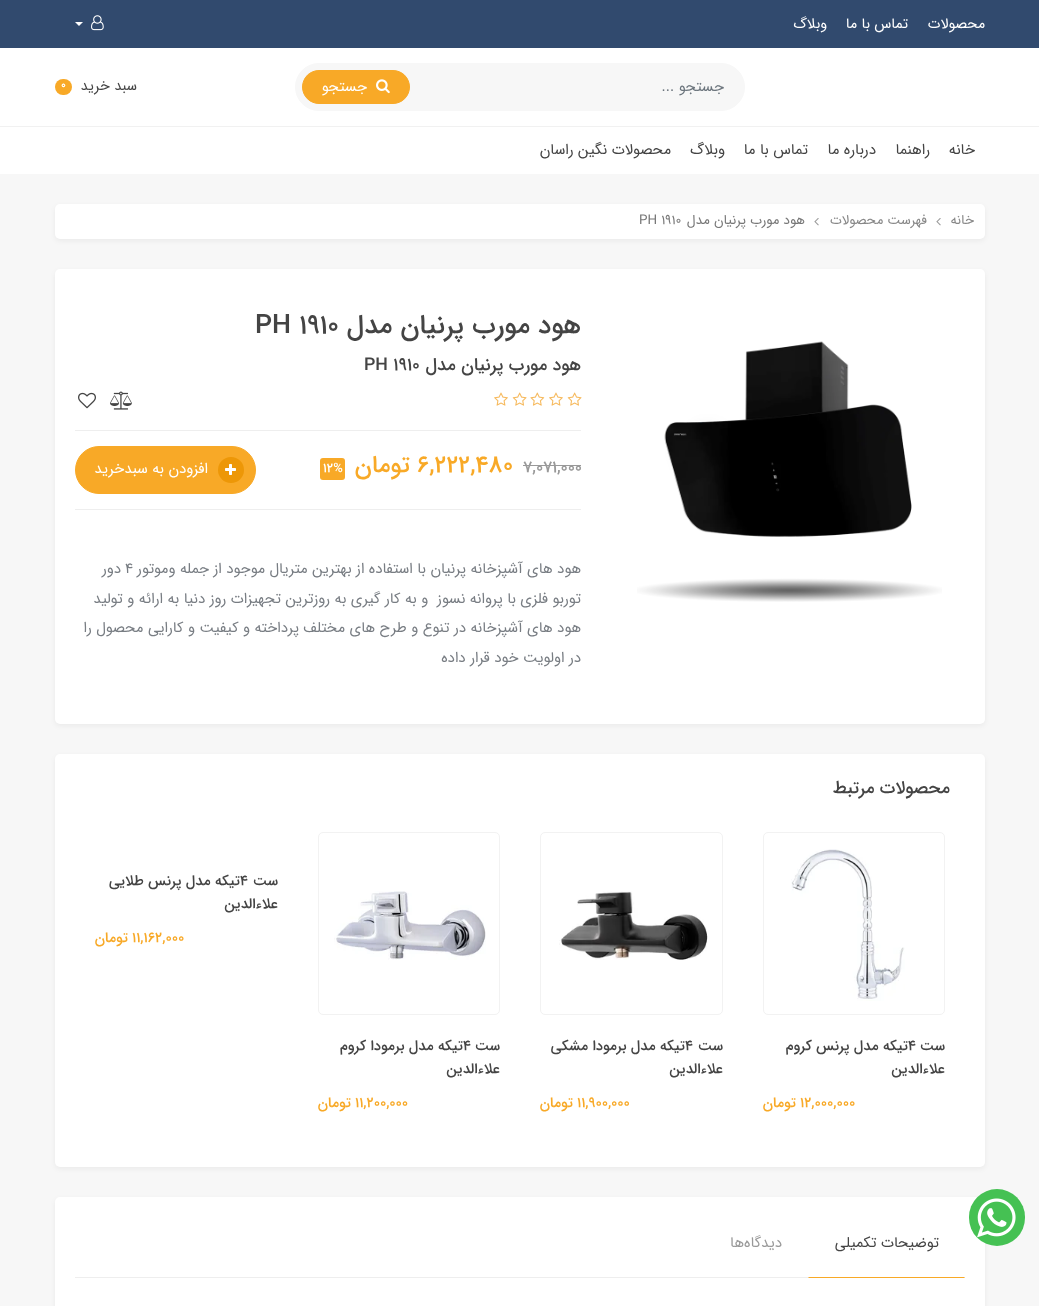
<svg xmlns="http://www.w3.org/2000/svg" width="1039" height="1306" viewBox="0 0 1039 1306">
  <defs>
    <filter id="blur1" x="-50%" y="-200%" width="200%" height="500%"><feGaussianBlur stdDeviation="2.5"/></filter>
  </defs>
  <rect width="100%" height="100%" fill="#f7f7f7"/>
  <rect x="0" y="0" width="1039" height="48" fill="#314a6e"/>
  <text x="985" y="28" font-family="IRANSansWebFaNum" font-size="14.5" direction="rtl" fill="#ffffff">محصولات</text>
  <text x="908" y="28" font-family="IRANSansWebFaNum" font-size="14.5" direction="rtl" fill="#ffffff">تماس با ما</text>
  <text x="827" y="28" font-family="IRANSansWebFaNum" font-size="14.5" direction="rtl" fill="#ffffff">وبلاگ</text>
  <image x="91" y="15" width="13" height="16" href="img1.png"/>
  <path d="M75 22H83L79 26Z" fill="#ffffff"/>
  <rect x="0" y="48" width="1039" height="78" fill="#ffffff"/>
  <rect x="295.5" y="63.5" width="449" height="47" rx="23.5" fill="#f7f7f7" stroke="#f7f7f7"/>
  <text x="724" y="91" font-family="IRANSansWebFaNum" font-size="14.9" direction="rtl" fill="#6c757d">جستجو ...</text>
  <rect x="302.5" y="70.5" width="107" height="33" rx="16.5" fill="#f8a927" stroke="#f8a927"/>
  <image x="376" y="79" width="14" height="15" href="img2.png"/>
  <text x="367" y="91" font-family="IRANSansWebFaNum" font-size="14.9" direction="rtl" fill="#ffffff">جستجو</text>
  <text x="137" y="90" font-family="IRANSansWebFaNum" font-size="14.5" direction="rtl" fill="#444444">سبد خرید</text>
  <rect x="55" y="79" width="17" height="16" rx="8" fill="#f8a927"/>
  <text x="61" y="88" font-family="IRANSansWebFaNum" font-size="11" font-weight="bold" fill="#ffffff">0</text>
  <rect x="0" y="127" width="1039" height="47" fill="#ffffff"/>
  <rect x="0" y="126" width="1039" height="1" fill="#f1f1f1"/>
  <text x="975" y="154" font-family="IRANSansWebFaNum" font-size="15" direction="rtl" fill="#444444">خانه</text>
  <text x="930" y="154" font-family="IRANSansWebFaNum" font-size="15" direction="rtl" fill="#444444">راهنما</text>
  <text x="876" y="154" font-family="IRANSansWebFaNum" font-size="15" direction="rtl" fill="#444444">درباره ما</text>
  <text x="808" y="154" font-family="IRANSansWebFaNum" font-size="15" direction="rtl" fill="#444444">تماس با ما</text>
  <text x="725" y="154" font-family="IRANSansWebFaNum" font-size="15" direction="rtl" fill="#444444">وبلاگ</text>
  <text x="671" y="154" font-family="IRANSansWebFaNum" font-size="15" direction="rtl" fill="#444444">محصولات نگین راسان</text>
  <rect x="55" y="1199" width="930" height="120" rx="5" fill="#000000" fill-opacity="0.05" filter="url(#blur1)"/>
  <rect x="55" y="1197" width="930" height="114" rx="5" fill="#ffffff"/>
  <rect x="969" y="1189" width="56" height="57" rx="28" fill="#45c153"/>
  <image x="977" y="1198" width="39" height="40" href="img3.png"/>
  <rect x="55" y="206" width="930" height="35" rx="5" fill="#000000" fill-opacity="0.05" filter="url(#blur1)"/>
  <rect x="55" y="204" width="930" height="35" rx="5" fill="#ffffff"/>
  <text x="974" y="224" font-family="IRANSansWebFaNum" font-size="13.5" direction="rtl" fill="#888888">خانه</text>
  <image x="936" y="218" width="5" height="8" href="img4.png"/>
  <text x="927" y="224" font-family="IRANSansWebFaNum" font-size="13.5" direction="rtl" fill="#888888">فهرست محصولات</text>
  <image x="814" y="218" width="5" height="8" href="img4.png"/>
  <text x="805" y="224" font-family="IRANSansWebFaNum" font-size="13.5" direction="rtl" fill="#777777">هود مورب پرنیان مدل</text>
  <text x="639" y="224" font-family="IRANSansWebFaNum" font-size="13.5" fill="#777777">PH 1910</text>
  <rect x="55" y="271" width="930" height="455" rx="5" fill="#000000" fill-opacity="0.05" filter="url(#blur1)"/>
  <rect x="55" y="269" width="930" height="455" rx="5" fill="#ffffff"/>
  <image x="637" y="341" width="305" height="261" href="img5.png"/>
  <text x="581" y="333" font-family="IRANSansWebFaNum" font-size="26.75" font-weight="500" direction="rtl" fill="#444444">هود مورب پرنیان مدل</text>
  <text x="255" y="333" font-family="IRANSansWebFaNum" font-size="26.75" font-weight="500" fill="#444444">PH 1910</text>
  <text x="581" y="370" font-family="IRANSansWebFaNum" font-size="17.75" font-weight="500" direction="rtl" fill="#444444">هود مورب پرنیان مدل</text>
  <text x="364" y="370" font-family="IRANSansWebFaNum" font-size="17.75" font-weight="500" fill="#444444">PH 1910</text>
  <image x="567" y="392" width="15" height="14" href="img6.png"/>
  <image x="549" y="392" width="14" height="14" href="img7.png"/>
  <image x="530" y="392" width="15" height="14" href="img8.png"/>
  <image x="512" y="392" width="15" height="14" href="img9.png"/>
  <image x="494" y="392" width="14" height="14" href="img10.png"/>
  <image x="110" y="391" width="22" height="19" href="img11.png"/>
  <image x="78" y="392" width="18" height="17" href="img12.png"/>
  <rect x="75" y="430" width="506" height="1" fill="#eeeeee"/>
  <rect x="75" y="509" width="506" height="1" fill="#eeeeee"/>
  <text x="523" y="472" font-family="IRANSansWebFaNum" font-size="16.5" font-weight="500" fill="#999999">7,071,000</text>
  <rect x="523" y="465" width="58" height="1" fill="#999999"/>
  <text x="417" y="472" font-family="IRANSansWebFaNum" font-size="24" font-weight="500" fill="#f8a927">6,222,480</text>
  <text x="410" y="472" font-family="IRANSansWebFaNum" font-size="24" font-weight="500" direction="rtl" fill="#f8a927">تومان</text>
  <rect x="320" y="458" width="25" height="22" rx="3" fill="#f8a927"/>
  <text x="323" y="472" font-family="IRANSansWebFaNum" font-size="13" font-weight="500" fill="#ffffff">12%</text>
  <rect x="75.5" y="446.5" width="180" height="47" rx="23.5" fill="#f8a927" stroke="#f8a927"/>
  <circle cx="231" cy="470" r="13" fill="#ed9707"/>
  <image x="225" y="464" width="11" height="11" href="img13.png"/>
  <text x="208" y="473" font-family="IRANSansWebFaNum" font-size="14.9" direction="rtl" fill="#ffffff">افزودن به سبدخرید</text>
  <text x="581" y="573" font-family="IRANSansWebFaNum" font-size="14.9" direction="rtl" fill="#787d83">هود های آشپزخانه پرنیان با استفاده از بهترین متریال موجود از جمله وموتور</text>
  <text x="125" y="573" font-family="IRANSansWebFaNum" font-size="14.9" fill="#787d83">4</text>
  <text x="121" y="573" font-family="IRANSansWebFaNum" font-size="14.9" direction="rtl" fill="#787d83">دور</text>
  <text x="581" y="603" font-family="IRANSansWebFaNum" font-size="14.9" direction="rtl" fill="#787d83" xml:space="preserve">توربو فلزی با پروانه نسوز  و به کار گیری به روزترین تجهیزات روز دنیا به ارائه و تولید</text>
  <text x="581" y="632" font-family="IRANSansWebFaNum" font-size="14.9" direction="rtl" fill="#787d83">هود های آشپزخانه در تنوع و طرح های مختلف پرداخته و کیفیت و کارایی محصول را</text>
  <text x="581" y="662" font-family="IRANSansWebFaNum" font-size="14.9" direction="rtl" fill="#787d83">در اولویت خود قرار داده</text>
  <rect x="55" y="756" width="930" height="413" rx="5" fill="#000000" fill-opacity="0.05" filter="url(#blur1)"/>
  <rect x="55" y="754" width="930" height="413" rx="5" fill="#ffffff"/>
  <text x="950" y="793" font-family="IRANSansWebFaNum" font-size="17.75" font-weight="500" direction="rtl" fill="#444444">محصولات مرتبط</text>
  <text x="278" y="885" font-family="IRANSansWebFaNum" font-size="14.5" font-weight="500" direction="rtl" fill="#444444">ست</text>
  <text x="240" y="885" font-family="IRANSansWebFaNum" font-size="14.5" font-weight="500" direction="rtl" fill="#444444">تیکه مدل پرنس طلایی</text>
  <text x="240" y="885" font-family="IRANSansWebFaNum" font-size="14.5" font-weight="500" fill="#444444">۴</text>
  <text x="278" y="908" font-family="IRANSansWebFaNum" font-size="14.5" font-weight="500" direction="rtl" fill="#444444">علاءالدین</text>
  <text x="132" y="942" font-family="IRANSansWebFaNum" font-size="14.5" font-weight="500" fill="#f8a927">11,162,000</text>
  <text x="128" y="942" font-family="IRANSansWebFaNum" font-size="14.5" font-weight="500" direction="rtl" fill="#f8a927">تومان</text>
  <rect x="763.5" y="832.5" width="181" height="182" rx="4.5" fill="none" stroke="#f2f2f2"/>
  <image x="791" y="849" width="114" height="152" href="img14.png"/>
  <text x="945" y="1050" font-family="IRANSansWebFaNum" font-size="14.5" font-weight="500" direction="rtl" fill="#444444">ست</text>
  <text x="908" y="1050" font-family="IRANSansWebFaNum" font-size="14.5" font-weight="500" fill="#444444">۴</text>
  <text x="908" y="1050" font-family="IRANSansWebFaNum" font-size="14.5" font-weight="500" direction="rtl" fill="#444444">تیکه مدل پرنس کروم</text>
  <text x="945" y="1073" font-family="IRANSansWebFaNum" font-size="14.5" font-weight="500" direction="rtl" fill="#444444">علاءالدین</text>
  <text x="800" y="1107" font-family="IRANSansWebFaNum" font-size="14.5" font-weight="500" fill="#f8a927">12,000,000</text>
  <text x="796" y="1107" font-family="IRANSansWebFaNum" font-size="14.5" font-weight="500" direction="rtl" fill="#f8a927">تومان</text>
  <rect x="540.5" y="832.5" width="182" height="182" rx="4.5" fill="none" stroke="#f2f2f2"/>
  <image x="559" y="891" width="149" height="69" href="img15.png"/>
  <text x="723" y="1050" font-family="IRANSansWebFaNum" font-size="14.5" font-weight="500" direction="rtl" fill="#444444">ست</text>
  <text x="685" y="1050" font-family="IRANSansWebFaNum" font-size="14.5" font-weight="500" direction="rtl" fill="#444444">تیکه مدل برمودا مشکی</text>
  <text x="685" y="1050" font-family="IRANSansWebFaNum" font-size="14.5" font-weight="500" fill="#444444">۴</text>
  <text x="723" y="1073" font-family="IRANSansWebFaNum" font-size="14.5" font-weight="500" direction="rtl" fill="#444444">علاءالدین</text>
  <text x="577" y="1107" font-family="IRANSansWebFaNum" font-size="14.5" font-weight="500" fill="#f8a927">11,900,000</text>
  <text x="573" y="1107" font-family="IRANSansWebFaNum" font-size="14.5" font-weight="500" direction="rtl" fill="#f8a927">تومان</text>
  <rect x="318.5" y="832.5" width="181" height="182" rx="4.5" fill="none" stroke="#f2f2f2"/>
  <image x="334" y="891" width="152" height="69" href="img16.png"/>
  <text x="500" y="1050" font-family="IRANSansWebFaNum" font-size="14.5" font-weight="500" direction="rtl" fill="#444444">ست</text>
  <text x="463" y="1050" font-family="IRANSansWebFaNum" font-size="14.5" font-weight="500" fill="#444444">۴</text>
  <text x="463" y="1050" font-family="IRANSansWebFaNum" font-size="14.5" font-weight="500" direction="rtl" fill="#444444">تیکه مدل برمودا کروم</text>
  <text x="500" y="1073" font-family="IRANSansWebFaNum" font-size="14.5" font-weight="500" direction="rtl" fill="#444444">علاءالدین</text>
  <text x="355" y="1107" font-family="IRANSansWebFaNum" font-size="14.5" font-weight="500" fill="#f8a927">11,200,000</text>
  <text x="351" y="1107" font-family="IRANSansWebFaNum" font-size="14.5" font-weight="500" direction="rtl" fill="#f8a927">تومان</text>
  <rect x="75" y="1277" width="890" height="1" fill="#eeeeee"/>
  <path d="M965 1278L964 1277H809L808 1278Z" fill="#f8a927"/>
  <text x="939" y="1247" font-family="IRANSansWebFaNum" font-size="14.9" direction="rtl" fill="#444444">توضیحات تکمیلی</text>
  <text x="782" y="1247" font-family="IRANSansWebFaNum" font-size="14.9" direction="rtl" fill="#999999">دیدگاه‌ها</text>
</svg>
